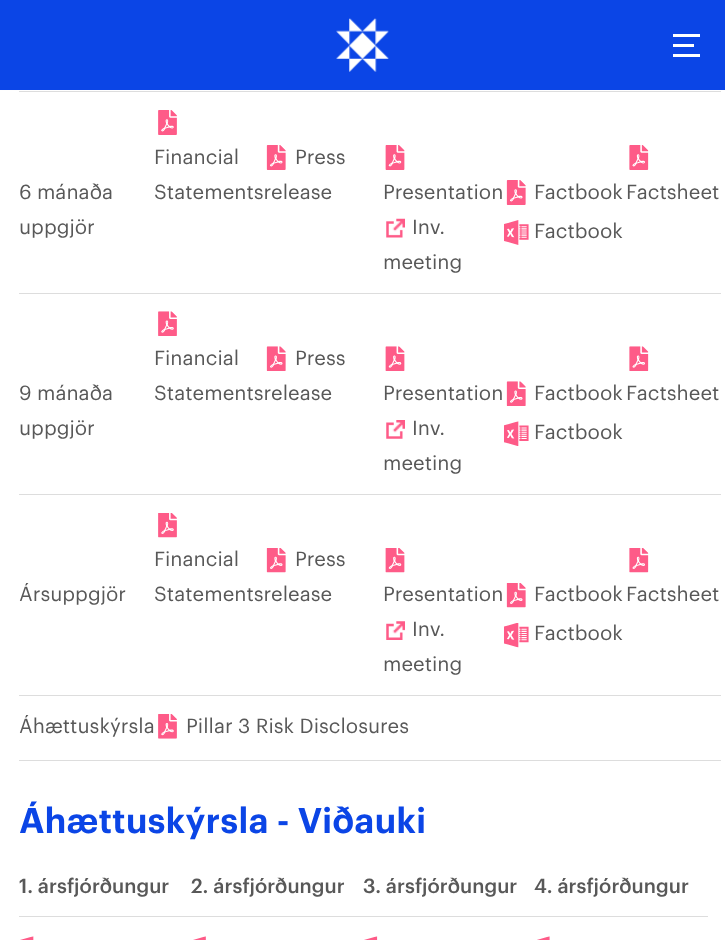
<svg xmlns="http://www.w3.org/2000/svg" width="725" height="940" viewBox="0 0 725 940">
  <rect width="100%" height="100%" fill="#ffffff"/>
  <rect x="0" y="0" width="725" height="90" fill="#0b45e6"/>
  <image x="336" y="18" width="53" height="54" href="img1.png"/>
  <rect x="673" y="44" width="21" height="3" fill="#ffffff"/>
  <rect x="673" y="34" width="27" height="3" fill="#ffffff"/>
  <rect x="673" y="54" width="27" height="3" fill="#ffffff"/>
  <rect x="19" y="91" width="702" height="1" fill="#dddddd"/>
  <image x="158" y="110" width="19" height="25" href="img2.png"/>
  <text x="154" y="164" font-family="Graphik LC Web" font-size="20" fill="#585858">Financial</text>
  <text x="154" y="199" font-family="Graphik LC Web" font-size="20" fill="#585858">Statementsrelease</text>
  <image x="266" y="145" width="20" height="25" href="img3.png"/>
  <text x="295" y="164" font-family="Graphik LC Web" font-size="20" fill="#585858">Press</text>
  <text x="19" y="199" font-family="Graphik LC Web" font-size="20" fill="#585858">6 mánaða</text>
  <text x="19" y="234" font-family="Graphik LC Web" font-size="20" fill="#585858">uppgjör</text>
  <image x="385" y="145" width="20" height="25" href="img4.png"/>
  <text x="383" y="199" font-family="Graphik LC Web" font-size="20" fill="#585858">Presentation</text>
  <image x="386" y="218" width="19" height="20" href="img5.png"/>
  <text x="412" y="234" font-family="Graphik LC Web" font-size="20" fill="#585858">Inv.</text>
  <text x="383" y="269" font-family="Graphik LC Web" font-size="20" fill="#585858">meeting</text>
  <image x="506" y="180" width="20" height="25" href="img6.png"/>
  <text x="534" y="199" font-family="Graphik LC Web" font-size="20" fill="#585858">Factbook</text>
  <image x="504" y="220" width="25" height="25" href="img7.png"/>
  <text x="534" y="238" font-family="Graphik LC Web" font-size="20" fill="#585858">Factbook</text>
  <rect x="19" y="293" width="702" height="1" fill="#dddddd"/>
  <image x="629" y="145" width="20" height="25" href="img8.png"/>
  <text x="626" y="199" font-family="Graphik LC Web" font-size="20" fill="#585858">Factsheet</text>
  <image x="158" y="311" width="19" height="25" href="img9.png"/>
  <text x="154" y="365" font-family="Graphik LC Web" font-size="20" fill="#585858">Financial</text>
  <text x="154" y="400" font-family="Graphik LC Web" font-size="20" fill="#585858">Statementsrelease</text>
  <image x="266" y="346" width="20" height="25" href="img10.png"/>
  <text x="295" y="365" font-family="Graphik LC Web" font-size="20" fill="#585858">Press</text>
  <text x="19" y="400" font-family="Graphik LC Web" font-size="20" fill="#585858">9 mánaða</text>
  <text x="19" y="435" font-family="Graphik LC Web" font-size="20" fill="#585858">uppgjör</text>
  <image x="385" y="346" width="20" height="25" href="img11.png"/>
  <text x="383" y="400" font-family="Graphik LC Web" font-size="20" fill="#585858">Presentation</text>
  <image x="386" y="420" width="19" height="19" href="img12.png"/>
  <text x="412" y="435" font-family="Graphik LC Web" font-size="20" fill="#585858">Inv.</text>
  <text x="383" y="470" font-family="Graphik LC Web" font-size="20" fill="#585858">meeting</text>
  <image x="506" y="381" width="20" height="25" href="img13.png"/>
  <text x="534" y="400" font-family="Graphik LC Web" font-size="20" fill="#585858">Factbook</text>
  <image x="504" y="421" width="25" height="25" href="img14.png"/>
  <text x="534" y="439" font-family="Graphik LC Web" font-size="20" fill="#585858">Factbook</text>
  <rect x="19" y="494" width="702" height="1" fill="#dddddd"/>
  <image x="629" y="346" width="20" height="25" href="img15.png"/>
  <text x="626" y="400" font-family="Graphik LC Web" font-size="20" fill="#585858">Factsheet</text>
  <image x="158" y="513" width="19" height="25" href="img16.png"/>
  <text x="154" y="566" font-family="Graphik LC Web" font-size="20" fill="#585858">Financial</text>
  <text x="154" y="601" font-family="Graphik LC Web" font-size="20" fill="#585858">Statementsrelease</text>
  <image x="266" y="548" width="20" height="25" href="img17.png"/>
  <text x="295" y="566" font-family="Graphik LC Web" font-size="20" fill="#585858">Press</text>
  <text x="19" y="601" font-family="Graphik LC Web" font-size="20" fill="#585858">Ársuppgjör</text>
  <image x="385" y="548" width="20" height="25" href="img18.png"/>
  <text x="383" y="601" font-family="Graphik LC Web" font-size="20" fill="#585858">Presentation</text>
  <image x="386" y="621" width="19" height="19" href="img19.png"/>
  <text x="412" y="636" font-family="Graphik LC Web" font-size="20" fill="#585858">Inv.</text>
  <text x="383" y="671" font-family="Graphik LC Web" font-size="20" fill="#585858">meeting</text>
  <image x="506" y="583" width="20" height="25" href="img20.png"/>
  <text x="534" y="601" font-family="Graphik LC Web" font-size="20" fill="#585858">Factbook</text>
  <image x="504" y="623" width="25" height="25" href="img21.png"/>
  <text x="534" y="640" font-family="Graphik LC Web" font-size="20" fill="#585858">Factbook</text>
  <rect x="19" y="695" width="702" height="1" fill="#dddddd"/>
  <image x="629" y="548" width="20" height="25" href="img22.png"/>
  <text x="626" y="601" font-family="Graphik LC Web" font-size="20" fill="#585858">Factsheet</text>
  <text x="19" y="733" font-family="Graphik LC Web" font-size="20" fill="#585858">Áhættuskýrsla</text>
  <rect x="19" y="760" width="702" height="1" fill="#dddddd"/>
  <image x="158" y="714" width="19" height="25" href="img23.png"/>
  <text x="186" y="733" font-family="Graphik LC Web" font-size="20" fill="#585858">Pillar 3 Risk Disclosures</text>
  <text x="19" y="833" font-family="Graphik LC Web" font-size="35" font-weight="600" fill="#0b45e6">Áhættuskýrsla - Viðauki</text>
  <text x="19" y="893" font-family="Graphik LC Web" font-size="20" font-weight="500" fill="#585858">1. ársfjórðungur</text>
  <text x="191" y="893" font-family="Graphik LC Web" font-size="20" font-weight="500" fill="#585858">2. ársfjórðungur</text>
  <text x="363" y="893" font-family="Graphik LC Web" font-size="20" font-weight="500" fill="#585858">3. ársfjórðungur</text>
  <rect x="19" y="916" width="689" height="1" fill="#dddddd"/>
  <text x="534" y="893" font-family="Graphik LC Web" font-size="20" font-weight="500" fill="#585858">4. ársfjórðungur</text>
  <image x="20" y="936" width="14" height="4" href="img24.png"/>
  <image x="193" y="936" width="13" height="4" href="img25.png"/>
  <image x="364" y="936" width="14" height="4" href="img26.png"/>
  <image x="537" y="936" width="13" height="4" href="img27.png"/>
</svg>
